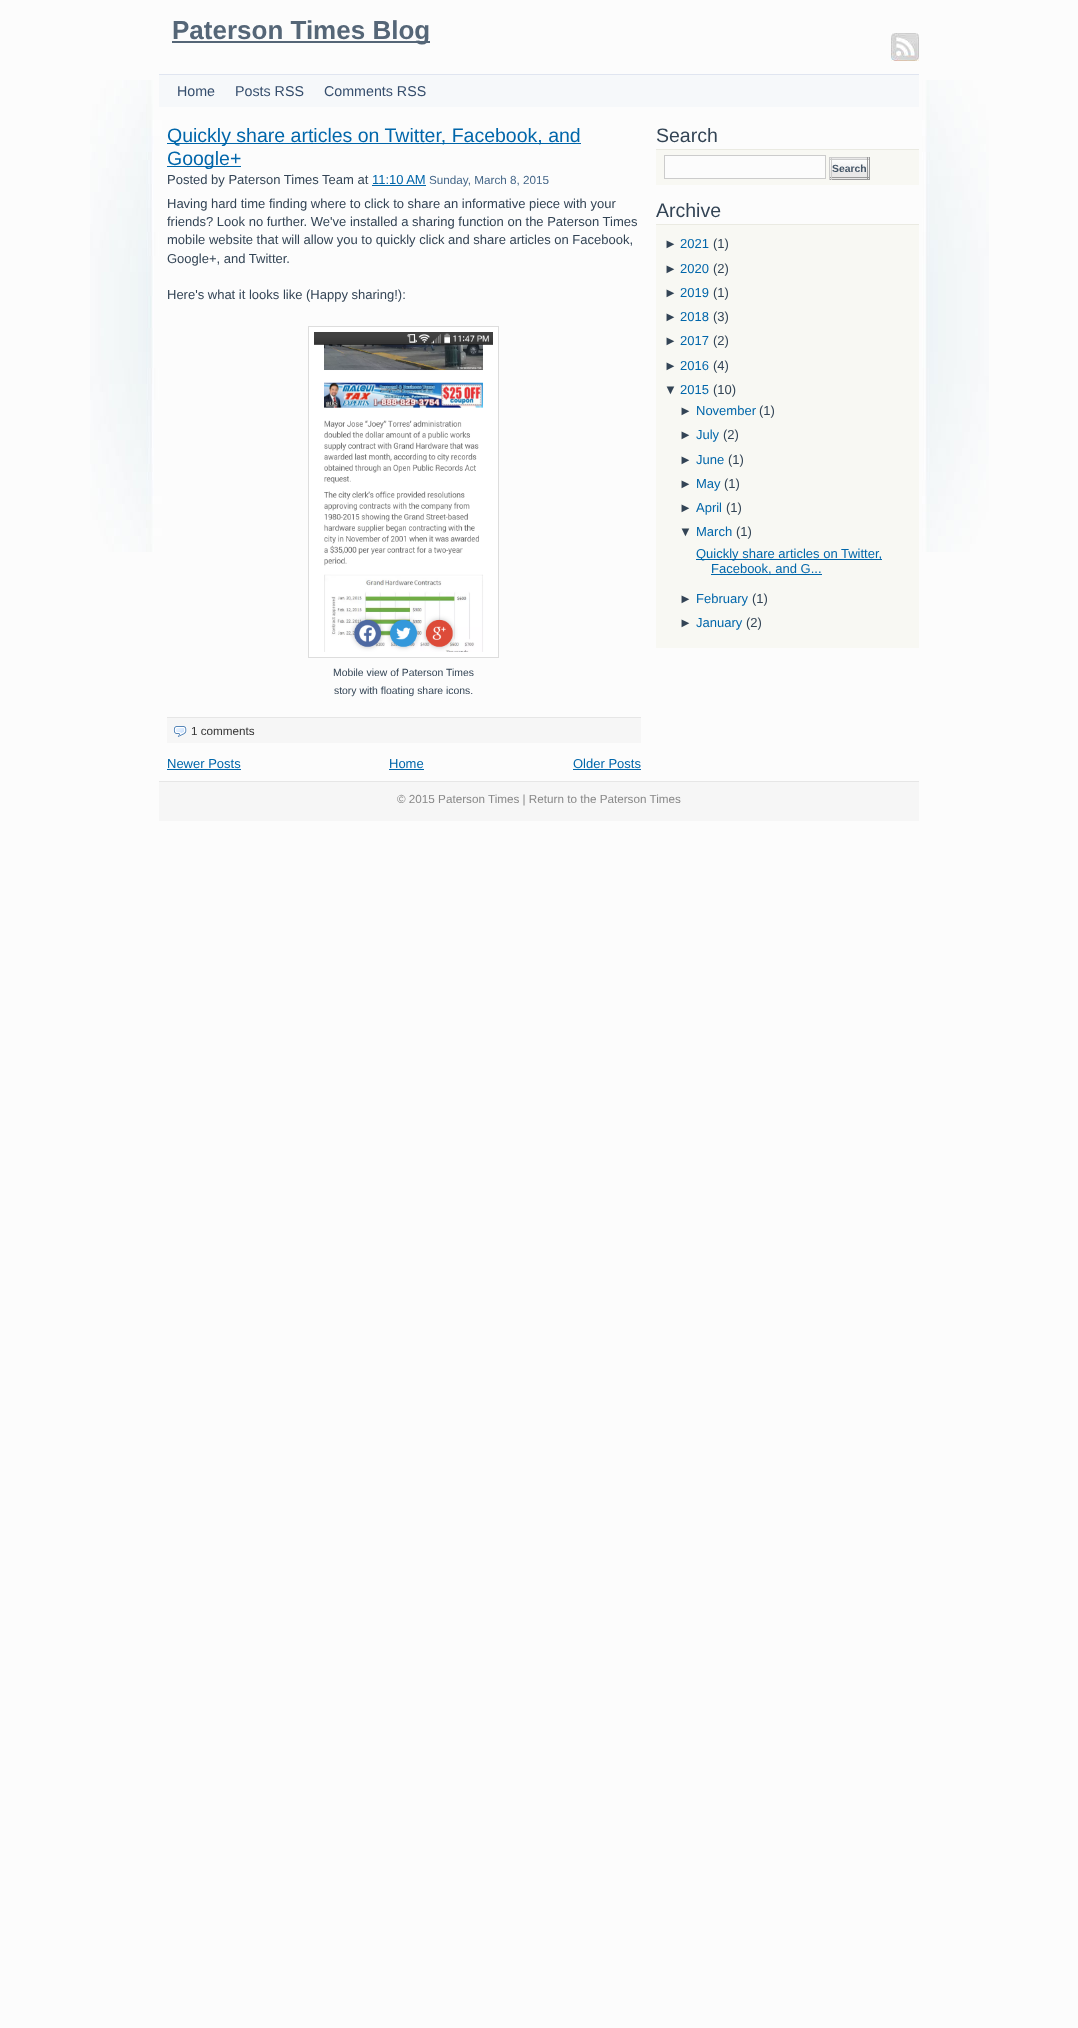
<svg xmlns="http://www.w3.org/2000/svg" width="1078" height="2028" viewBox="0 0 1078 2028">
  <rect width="100%" height="100%" fill="#fcfcfc"/>
  <image x="90" y="80" width="899" height="472" href="img1.png"/>
  <rect x="172" y="41" width="258" height="2" fill="#556677"/>
  <text x="172" y="39" font-family="Liberation Sans" font-size="26" font-weight="bold" fill="#556677">Paterson Times Blog</text>
  <image x="891" y="33" width="28" height="28" href="img2.png"/>
  <rect x="159" y="75" width="760" height="32" fill="#f6f8fa"/>
  <rect x="159" y="74" width="760" height="1" fill="#e0e5f0"/>
  <text x="177" y="96" font-family="Liberation Sans" font-size="14.25" fill="#364e6d">Home</text>
  <text x="235" y="96" font-family="Liberation Sans" font-size="14.25" fill="#364e6d">Posts RSS</text>
  <text x="324" y="96" font-family="Liberation Sans" font-size="14.25" fill="#364e6d">Comments RSS</text>
  <rect x="167" y="143" width="414" height="1" fill="#0066aa"/>
  <text x="167" y="142" font-family="Liberation Sans" font-size="19.5" fill="#0066aa">Quickly share articles on Twitter, Facebook, and</text>
  <rect x="167" y="166" width="74" height="1" fill="#0066aa"/>
  <text x="167" y="165" font-family="Liberation Sans" font-size="19.5" fill="#0066aa">Google+</text>
  <text x="167" y="184" font-family="Liberation Sans" font-size="13" fill="#334455">Posted by Paterson Times Team at</text>
  <text x="372" y="184" font-family="Liberation Sans" font-size="13" fill="#0066aa">11:10 AM</text>
  <rect x="372" y="185" width="54" height="1" fill="#0066aa"/>
  <text x="429" y="184" font-family="Liberation Sans" font-size="11.7" fill="#446688">Sunday, March 8, 2015</text>
  <text x="167" y="208" font-family="Liberation Sans" font-size="13" fill="#334455">Having hard time finding where to click to share an informative piece with your</text>
  <text x="167" y="226" font-family="Liberation Sans" font-size="13" fill="#334455">friends? Look no further. We've installed a sharing function on the Paterson Times</text>
  <text x="167" y="244" font-family="Liberation Sans" font-size="13" fill="#334455">mobile website that will allow you to quickly click and share articles on Facebook,</text>
  <text x="167" y="263" font-family="Liberation Sans" font-size="13" fill="#334455">Google+, and Twitter.</text>
  <text x="167" y="299" font-family="Liberation Sans" font-size="13" fill="#334455">Here's what it looks like (Happy sharing!):</text>
  <rect x="308.5" y="326.5" width="190" height="331" fill="#ffffff" stroke="#dddddd"/>
  <image x="314" y="332" width="179" height="320" href="img3.png"/>
  <text x="333" y="676" font-family="Liberation Sans" font-size="10.4" fill="#334455">Mobile view of Paterson Times</text>
  <text x="334" y="694" font-family="Liberation Sans" font-size="10.4" fill="#334455">story with floating share icons.</text>
  <rect x="167" y="718" width="474" height="25" fill="#f6f6f6"/>
  <rect x="167" y="717" width="474" height="1" fill="#e6e6e6"/>
  <image x="173" y="726" width="14" height="11" href="img4.png"/>
  <text x="191" y="735" font-family="Liberation Sans" font-size="11.7" fill="#333333">1 comments</text>
  <text x="167" y="768" font-family="Liberation Sans" font-size="13" fill="#0066aa">Newer Posts</text>
  <rect x="167" y="769" width="74" height="1" fill="#0066aa"/>
  <text x="389" y="768" font-family="Liberation Sans" font-size="13" fill="#0066aa">Home</text>
  <rect x="389" y="769" width="35" height="1" fill="#0066aa"/>
  <text x="573" y="768" font-family="Liberation Sans" font-size="13" fill="#0066aa">Older Posts</text>
  <rect x="573" y="769" width="68" height="1" fill="#0066aa"/>
  <text x="656" y="142" font-family="Liberation Sans" font-size="19.5" fill="#334455">Search</text>
  <rect x="656" y="150" width="263" height="35" fill="#f8f8f3"/>
  <rect x="656" y="149" width="263" height="1" fill="#eaeae2"/>
  <rect x="664.5" y="155.5" width="161" height="23" fill="#fcfcfc" stroke="#cccccc"/>
  <rect x="830" y="158" width="39" height="21" fill="#e9e8e8"/>
  <image x="830" y="160" width="39" height="11" href="img5.png"/>
  <rect x="829" y="157" width="41" height="1" fill="#cccccc"/>
  <rect x="829" y="159" width="41" height="1" fill="#cccccc"/>
  <rect x="867" y="157" width="1" height="23" fill="#999999"/>
  <rect x="869" y="157" width="1" height="23" fill="#999999"/>
  <rect x="829" y="177" width="41" height="1" fill="#999999"/>
  <rect x="829" y="179" width="41" height="1" fill="#999999"/>
  <rect x="829" y="157" width="1" height="23" fill="#cccccc"/>
  <rect x="831" y="157" width="1" height="23" fill="#cccccc"/>
  <text x="832" y="172" font-family="Liberation Sans" font-size="10.4" font-weight="bold" fill="#445566">Search</text>
  <text x="656" y="217" font-family="Liberation Sans" font-size="19.5" fill="#334455">Archive</text>
  <rect x="656" y="225" width="263" height="423" fill="#f8f8f3"/>
  <rect x="656" y="224" width="263" height="1" fill="#eaeae2"/>
  <text x="664" y="248" font-family="Liberation Sans" font-size="13" fill="#334455">►</text>
  <text x="680" y="248" font-family="Liberation Sans" font-size="13" fill="#0066aa">2021</text>
  <text x="713" y="248" font-family="Liberation Sans" font-size="13" fill="#334455">(1)</text>
  <text x="664" y="273" font-family="Liberation Sans" font-size="13" fill="#334455">►</text>
  <text x="680" y="273" font-family="Liberation Sans" font-size="13" fill="#0066aa">2020</text>
  <text x="713" y="273" font-family="Liberation Sans" font-size="13" fill="#334455">(2)</text>
  <text x="664" y="297" font-family="Liberation Sans" font-size="13" fill="#334455">►</text>
  <text x="680" y="297" font-family="Liberation Sans" font-size="13" fill="#0066aa">2019</text>
  <text x="713" y="297" font-family="Liberation Sans" font-size="13" fill="#334455">(1)</text>
  <text x="664" y="321" font-family="Liberation Sans" font-size="13" fill="#334455">►</text>
  <text x="680" y="321" font-family="Liberation Sans" font-size="13" fill="#0066aa">2018</text>
  <text x="713" y="321" font-family="Liberation Sans" font-size="13" fill="#334455">(3)</text>
  <text x="664" y="345" font-family="Liberation Sans" font-size="13" fill="#334455">►</text>
  <text x="680" y="345" font-family="Liberation Sans" font-size="13" fill="#0066aa">2017</text>
  <text x="713" y="345" font-family="Liberation Sans" font-size="13" fill="#334455">(2)</text>
  <text x="664" y="370" font-family="Liberation Sans" font-size="13" fill="#334455">►</text>
  <text x="680" y="370" font-family="Liberation Sans" font-size="13" fill="#0066aa">2016</text>
  <text x="713" y="370" font-family="Liberation Sans" font-size="13" fill="#334455">(4)</text>
  <text x="664" y="394" font-family="Liberation Sans" font-size="13" fill="#334455">▼</text>
  <text x="680" y="394" font-family="Liberation Sans" font-size="13" fill="#0066aa">2015</text>
  <text x="713" y="394" font-family="Liberation Sans" font-size="13" fill="#334455">(10)</text>
  <text x="679" y="415" font-family="Liberation Sans" font-size="13" fill="#334455">►</text>
  <text x="696" y="415" font-family="Liberation Sans" font-size="13" fill="#0066aa">November</text>
  <text x="759" y="415" font-family="Liberation Sans" font-size="13" fill="#334455">(1)</text>
  <text x="679" y="439" font-family="Liberation Sans" font-size="13" fill="#334455">►</text>
  <text x="696" y="439" font-family="Liberation Sans" font-size="13" fill="#0066aa">July</text>
  <text x="723" y="439" font-family="Liberation Sans" font-size="13" fill="#334455">(2)</text>
  <text x="679" y="464" font-family="Liberation Sans" font-size="13" fill="#334455">►</text>
  <text x="696" y="464" font-family="Liberation Sans" font-size="13" fill="#0066aa">June</text>
  <text x="728" y="464" font-family="Liberation Sans" font-size="13" fill="#334455">(1)</text>
  <text x="679" y="488" font-family="Liberation Sans" font-size="13" fill="#334455">►</text>
  <text x="696" y="488" font-family="Liberation Sans" font-size="13" fill="#0066aa">May</text>
  <text x="724" y="488" font-family="Liberation Sans" font-size="13" fill="#334455">(1)</text>
  <text x="679" y="512" font-family="Liberation Sans" font-size="13" fill="#334455">►</text>
  <text x="696" y="512" font-family="Liberation Sans" font-size="13" fill="#0066aa">April</text>
  <text x="726" y="512" font-family="Liberation Sans" font-size="13" fill="#334455">(1)</text>
  <text x="679" y="536" font-family="Liberation Sans" font-size="13" fill="#334455">▼</text>
  <text x="696" y="536" font-family="Liberation Sans" font-size="13" fill="#0066aa">March</text>
  <text x="736" y="536" font-family="Liberation Sans" font-size="13" fill="#334455">(1)</text>
  <rect x="696" y="559" width="186" height="1" fill="#0066aa"/>
  <text x="696" y="558" font-family="Liberation Sans" font-size="13" fill="#0066aa">Quickly share articles on Twitter,</text>
  <rect x="711" y="574" width="111" height="1" fill="#0066aa"/>
  <text x="711" y="573" font-family="Liberation Sans" font-size="13" fill="#0066aa">Facebook, and G...</text>
  <text x="679" y="603" font-family="Liberation Sans" font-size="13" fill="#334455">►</text>
  <text x="696" y="603" font-family="Liberation Sans" font-size="13" fill="#0066aa">February</text>
  <text x="752" y="603" font-family="Liberation Sans" font-size="13" fill="#334455">(1)</text>
  <text x="679" y="627" font-family="Liberation Sans" font-size="13" fill="#334455">►</text>
  <text x="696" y="627" font-family="Liberation Sans" font-size="13" fill="#0066aa">January</text>
  <text x="746" y="627" font-family="Liberation Sans" font-size="13" fill="#334455">(2)</text>
  <rect x="159" y="782" width="760" height="39" fill="#f6f6f6"/>
  <rect x="159" y="781" width="760" height="1" fill="#e6e6e6"/>
  <text x="397" y="803" font-family="Liberation Sans" font-size="11.7" fill="#888888">© 2015 Paterson Times | Return to the Paterson Times</text>
</svg>
